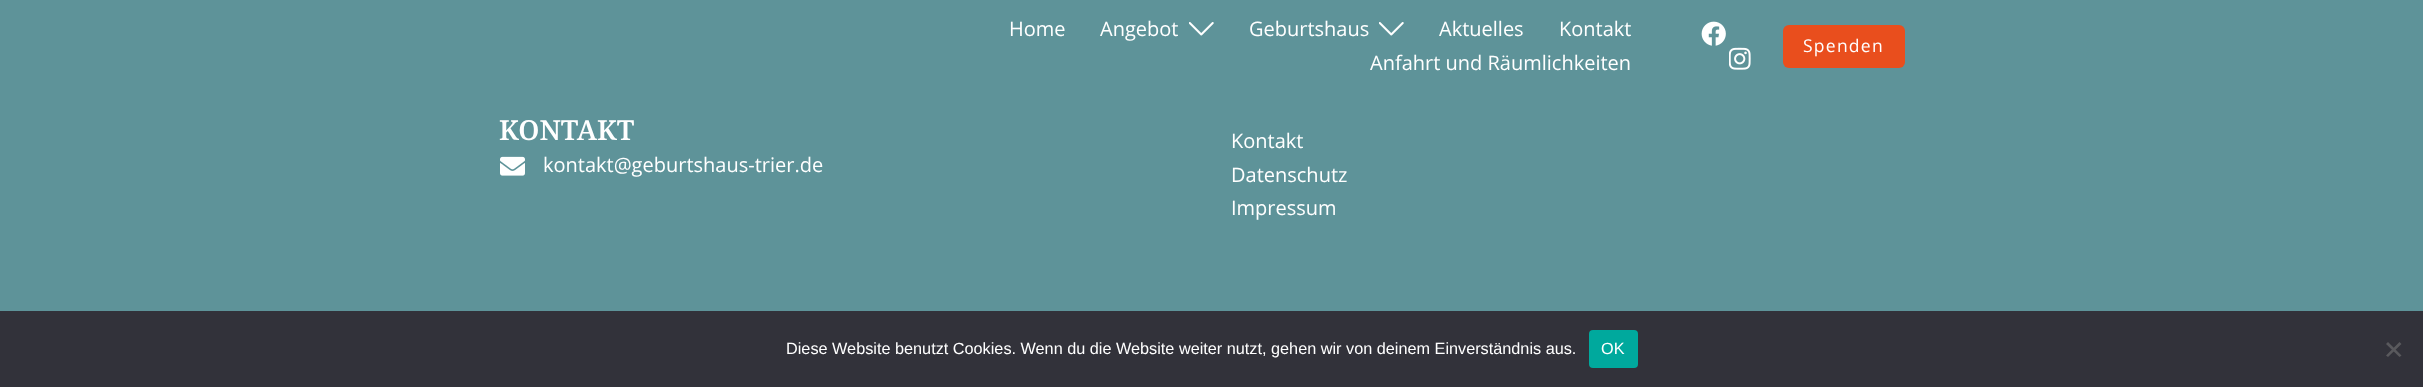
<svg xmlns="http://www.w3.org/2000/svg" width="2423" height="387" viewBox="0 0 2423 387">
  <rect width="100%" height="100%" fill="#5e9399"/>
  <text x="1009" y="36" font-family="Open Sans" font-size="20" fill="#ffffff">Home</text>
  <text x="1100" y="36" font-family="Open Sans" font-size="20" fill="#ffffff">Angebot</text>
  <image x="1189" y="22" width="25" height="14" href="img1.png"/>
  <text x="1249" y="36" font-family="Open Sans" font-size="20" fill="#ffffff">Geburtshaus</text>
  <image x="1379" y="22" width="25" height="14" href="img1.png"/>
  <text x="1439" y="36" font-family="Open Sans" font-size="20" fill="#ffffff">Aktuelles</text>
  <text x="1559" y="36" font-family="Open Sans" font-size="20" fill="#ffffff">Kontakt</text>
  <text x="1370" y="70" font-family="Open Sans" font-size="20" fill="#ffffff">Anfahrt und Räumlichkeiten</text>
  <image x="1701" y="21" width="25" height="25" href="img2.png"/>
  <image x="1729" y="47" width="22" height="23" href="img3.png"/>
  <rect x="1783" y="25" width="122" height="43" rx="6" fill="#e94e1d"/>
  <text x="1803" y="52" font-family="Open Sans" font-size="17.5" letter-spacing="1.25" fill="#ffffff">Spenden</text>
  <text x="499" y="140" font-family="Noto Serif" font-size="27.5" font-weight="600" fill="#ffffff">KONTAKT</text>
  <image x="500" y="156" width="25" height="20" href="img4.png"/>
  <text x="543" y="172" font-family="Open Sans" font-size="20" fill="#ffffff">kontakt@geburtshaus-trier.de</text>
  <text x="1231" y="148" font-family="Open Sans" font-size="20" fill="#ffffff">Kontakt</text>
  <text x="1231" y="182" font-family="Open Sans" font-size="20" fill="#ffffff">Datenschutz</text>
  <text x="1231" y="215" font-family="Open Sans" font-size="20" fill="#ffffff">Impressum</text>
  <rect x="0" y="311" width="2423" height="76" fill="#32323a"/>
  <text x="786" y="354" font-family="Liberation Sans" font-size="16.25" fill="#ffffff">Diese Website benutzt Cookies. Wenn du die Website weiter nutzt, gehen wir von deinem Einverständnis aus.</text>
  <rect x="1589" y="330" width="49" height="38" rx="4" fill="#00a99d"/>
  <text x="1601" y="354" font-family="Liberation Sans" font-size="16.25" fill="#ffffff">OK</text>
  <path d="M2399.5 342L2401.5 344L2388 357L2386 355.5Z" fill="#59595d"/>
  <path d="M2386 344L2388 342L2401.5 355.5L2399.5 357Z" fill="#59595d"/>
</svg>
